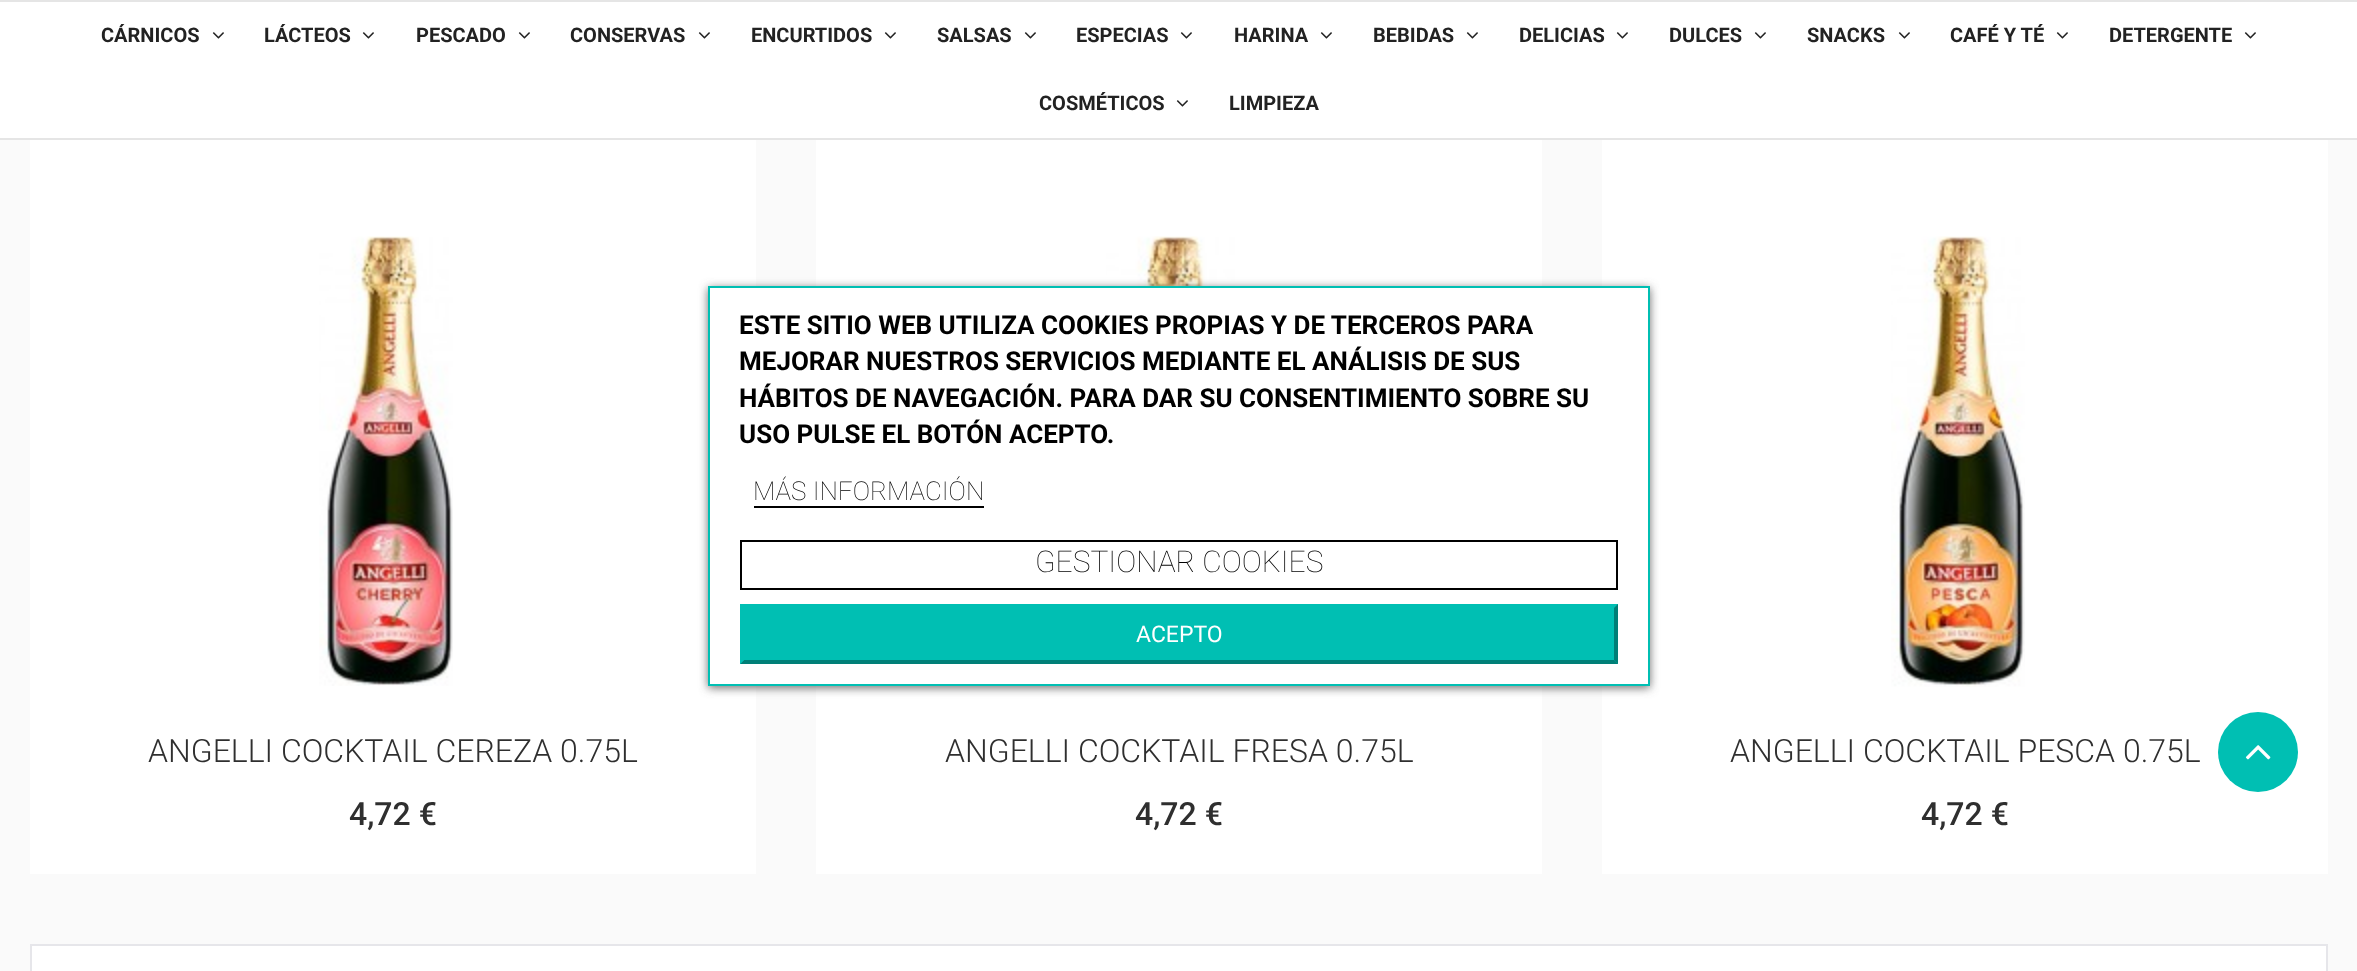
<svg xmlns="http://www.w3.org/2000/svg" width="2357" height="971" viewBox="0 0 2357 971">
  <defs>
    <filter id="blur1" x="-50%" y="-200%" width="200%" height="500%"><feGaussianBlur stdDeviation="5"/></filter>
  </defs>
  <rect width="100%" height="100%" fill="#fafafa"/>
  <rect x="0" y="2" width="2357" height="136" fill="#ffffff"/>
  <rect x="0" y="0" width="2357" height="2" fill="#e5e5e5"/>
  <rect x="0" y="138" width="2357" height="2" fill="#e5e5e5"/>
  <text x="101" y="42" font-family="Roboto" font-size="20" font-weight="bold" fill="#222222">CÁRNICOS</text>
  <image x="212" y="32" width="12" height="7" href="img1.png"/>
  <text x="264" y="42" font-family="Roboto" font-size="20" font-weight="bold" fill="#222222">LÁCTEOS</text>
  <image x="362" y="32" width="12" height="7" href="img1.png"/>
  <text x="416" y="42" font-family="Roboto" font-size="20" font-weight="bold" fill="#222222">PESCADO</text>
  <image x="518" y="32" width="12" height="7" href="img1.png"/>
  <text x="570" y="42" font-family="Roboto" font-size="20" font-weight="bold" fill="#222222">CONSERVAS</text>
  <image x="698" y="32" width="12" height="7" href="img1.png"/>
  <text x="751" y="42" font-family="Roboto" font-size="20" font-weight="bold" fill="#222222">ENCURTIDOS</text>
  <image x="884" y="32" width="12" height="7" href="img1.png"/>
  <text x="937" y="42" font-family="Roboto" font-size="20" font-weight="bold" fill="#222222">SALSAS</text>
  <image x="1024" y="32" width="12" height="7" href="img1.png"/>
  <text x="1076" y="42" font-family="Roboto" font-size="20" font-weight="bold" fill="#222222">ESPECIAS</text>
  <image x="1180" y="32" width="12" height="7" href="img1.png"/>
  <text x="1234" y="42" font-family="Roboto" font-size="20" font-weight="bold" fill="#222222">HARINA</text>
  <image x="1320" y="32" width="12" height="7" href="img1.png"/>
  <text x="1373" y="42" font-family="Roboto" font-size="20" font-weight="bold" fill="#222222">BEBIDAS</text>
  <image x="1466" y="32" width="12" height="7" href="img1.png"/>
  <text x="1519" y="42" font-family="Roboto" font-size="20" font-weight="bold" fill="#222222">DELICIAS</text>
  <image x="1616" y="32" width="12" height="7" href="img1.png"/>
  <text x="1669" y="42" font-family="Roboto" font-size="20" font-weight="bold" fill="#222222">DULCES</text>
  <image x="1754" y="32" width="12" height="7" href="img1.png"/>
  <text x="1807" y="42" font-family="Roboto" font-size="20" font-weight="bold" fill="#222222">SNACKS</text>
  <image x="1898" y="32" width="12" height="7" href="img1.png"/>
  <text x="1950" y="42" font-family="Roboto" font-size="20" font-weight="bold" fill="#222222">CAFÉ Y TÉ</text>
  <image x="2056" y="32" width="12" height="7" href="img1.png"/>
  <text x="2109" y="42" font-family="Roboto" font-size="20" font-weight="bold" fill="#222222">DETERGENTE</text>
  <image x="2244" y="32" width="12" height="7" href="img1.png"/>
  <text x="1039" y="110" font-family="Roboto" font-size="20" font-weight="bold" fill="#222222">COSMÉTICOS</text>
  <image x="1176" y="100" width="12" height="7" href="img1.png"/>
  <text x="1229" y="110" font-family="Roboto" font-size="20" font-weight="bold" fill="#222222">LIMPIEZA</text>
  <rect x="30" y="140" width="726" height="734" fill="#ffffff"/>
  <rect x="816" y="140" width="726" height="734" fill="#ffffff"/>
  <image x="1106" y="236" width="133" height="50" href="img4.png"/>
  <rect x="1602" y="140" width="726" height="734" fill="#ffffff"/>
  <rect x="708" y="288" width="942" height="400" fill="#707070" filter="url(#blur1)"/>
  <rect x="709" y="287" width="940" height="398" fill="#ffffff" stroke="#00bfb3" stroke-width="2"/>
  <text x="739" y="334" font-family="Roboto" font-size="26" font-weight="bold" fill="#000000">ESTE SITIO WEB UTILIZA COOKIES PROPIAS Y DE TERCEROS PARA</text>
  <text x="739" y="370" font-family="Roboto" font-size="26" font-weight="bold" fill="#000000">MEJORAR NUESTROS SERVICIOS MEDIANTE EL ANÁLISIS DE SUS</text>
  <text x="739" y="407" font-family="Roboto" font-size="26" font-weight="bold" fill="#000000">HÁBITOS DE NAVEGACIÓN. PARA DAR SU CONSENTIMIENTO SOBRE SU</text>
  <text x="739" y="443" font-family="Roboto" font-size="26" font-weight="bold" fill="#000000">USO PULSE EL BOTÓN ACEPTO.</text>
  <text x="753" y="500" font-family="Roboto" font-size="26" font-weight="100" fill="#000000">MÁS INFORMACIÓN</text>
  <rect x="754" y="506" width="230" height="2" fill="#000000"/>
  <rect x="741" y="541" width="876" height="48" fill="none" stroke="#000000" stroke-width="2"/>
  <text x="1035" y="572" font-family="Roboto" font-size="30" font-weight="100" fill="#000000">GESTIONAR COOKIES</text>
  <rect x="740" y="604" width="878" height="60" fill="#00bfb3"/>
  <path d="M1618 604V664L1614 660V608Z" fill="#007f77"/>
  <path d="M1618 664H740L744 660H1614Z" fill="#007f77"/>
  <path d="M740 664V604L744 608V660Z" fill="#00bfb3"/>
  <text x="1136" y="642" font-family="Roboto" font-size="23" fill="#ffffff">ACEPTO</text>
  <circle cx="2258" cy="752" r="40" fill="#00bfb3"/>
  <image x="2245" y="745" width="26" height="15" href="img2.png"/>
  <image x="319" y="236" width="134" height="450" href="img3.png"/>
  <text x="148" y="762" font-family="Roboto" font-size="32" font-weight="300" fill="#2f2f2f">ANGELLI COCKTAIL CEREZA 0.75L</text>
  <text x="349" y="825" font-family="Roboto" font-size="32" font-weight="500" fill="#2f2f2f">4,72 €</text>
  <text x="945" y="762" font-family="Roboto" font-size="32" font-weight="300" fill="#2f2f2f">ANGELLI COCKTAIL FRESA 0.75L</text>
  <text x="1135" y="825" font-family="Roboto" font-size="32" font-weight="500" fill="#2f2f2f">4,72 €</text>
  <image x="1891" y="236" width="134" height="451" href="img5.png"/>
  <text x="1730" y="762" font-family="Roboto" font-size="32" font-weight="300" fill="#2f2f2f">ANGELLI COCKTAIL PESCA 0.75L</text>
  <text x="1921" y="825" font-family="Roboto" font-size="32" font-weight="500" fill="#2f2f2f">4,72 €</text>
  <rect x="31" y="945" width="2296" height="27" fill="#ffffff" stroke="#e6e6ea" stroke-width="2"/>
</svg>
